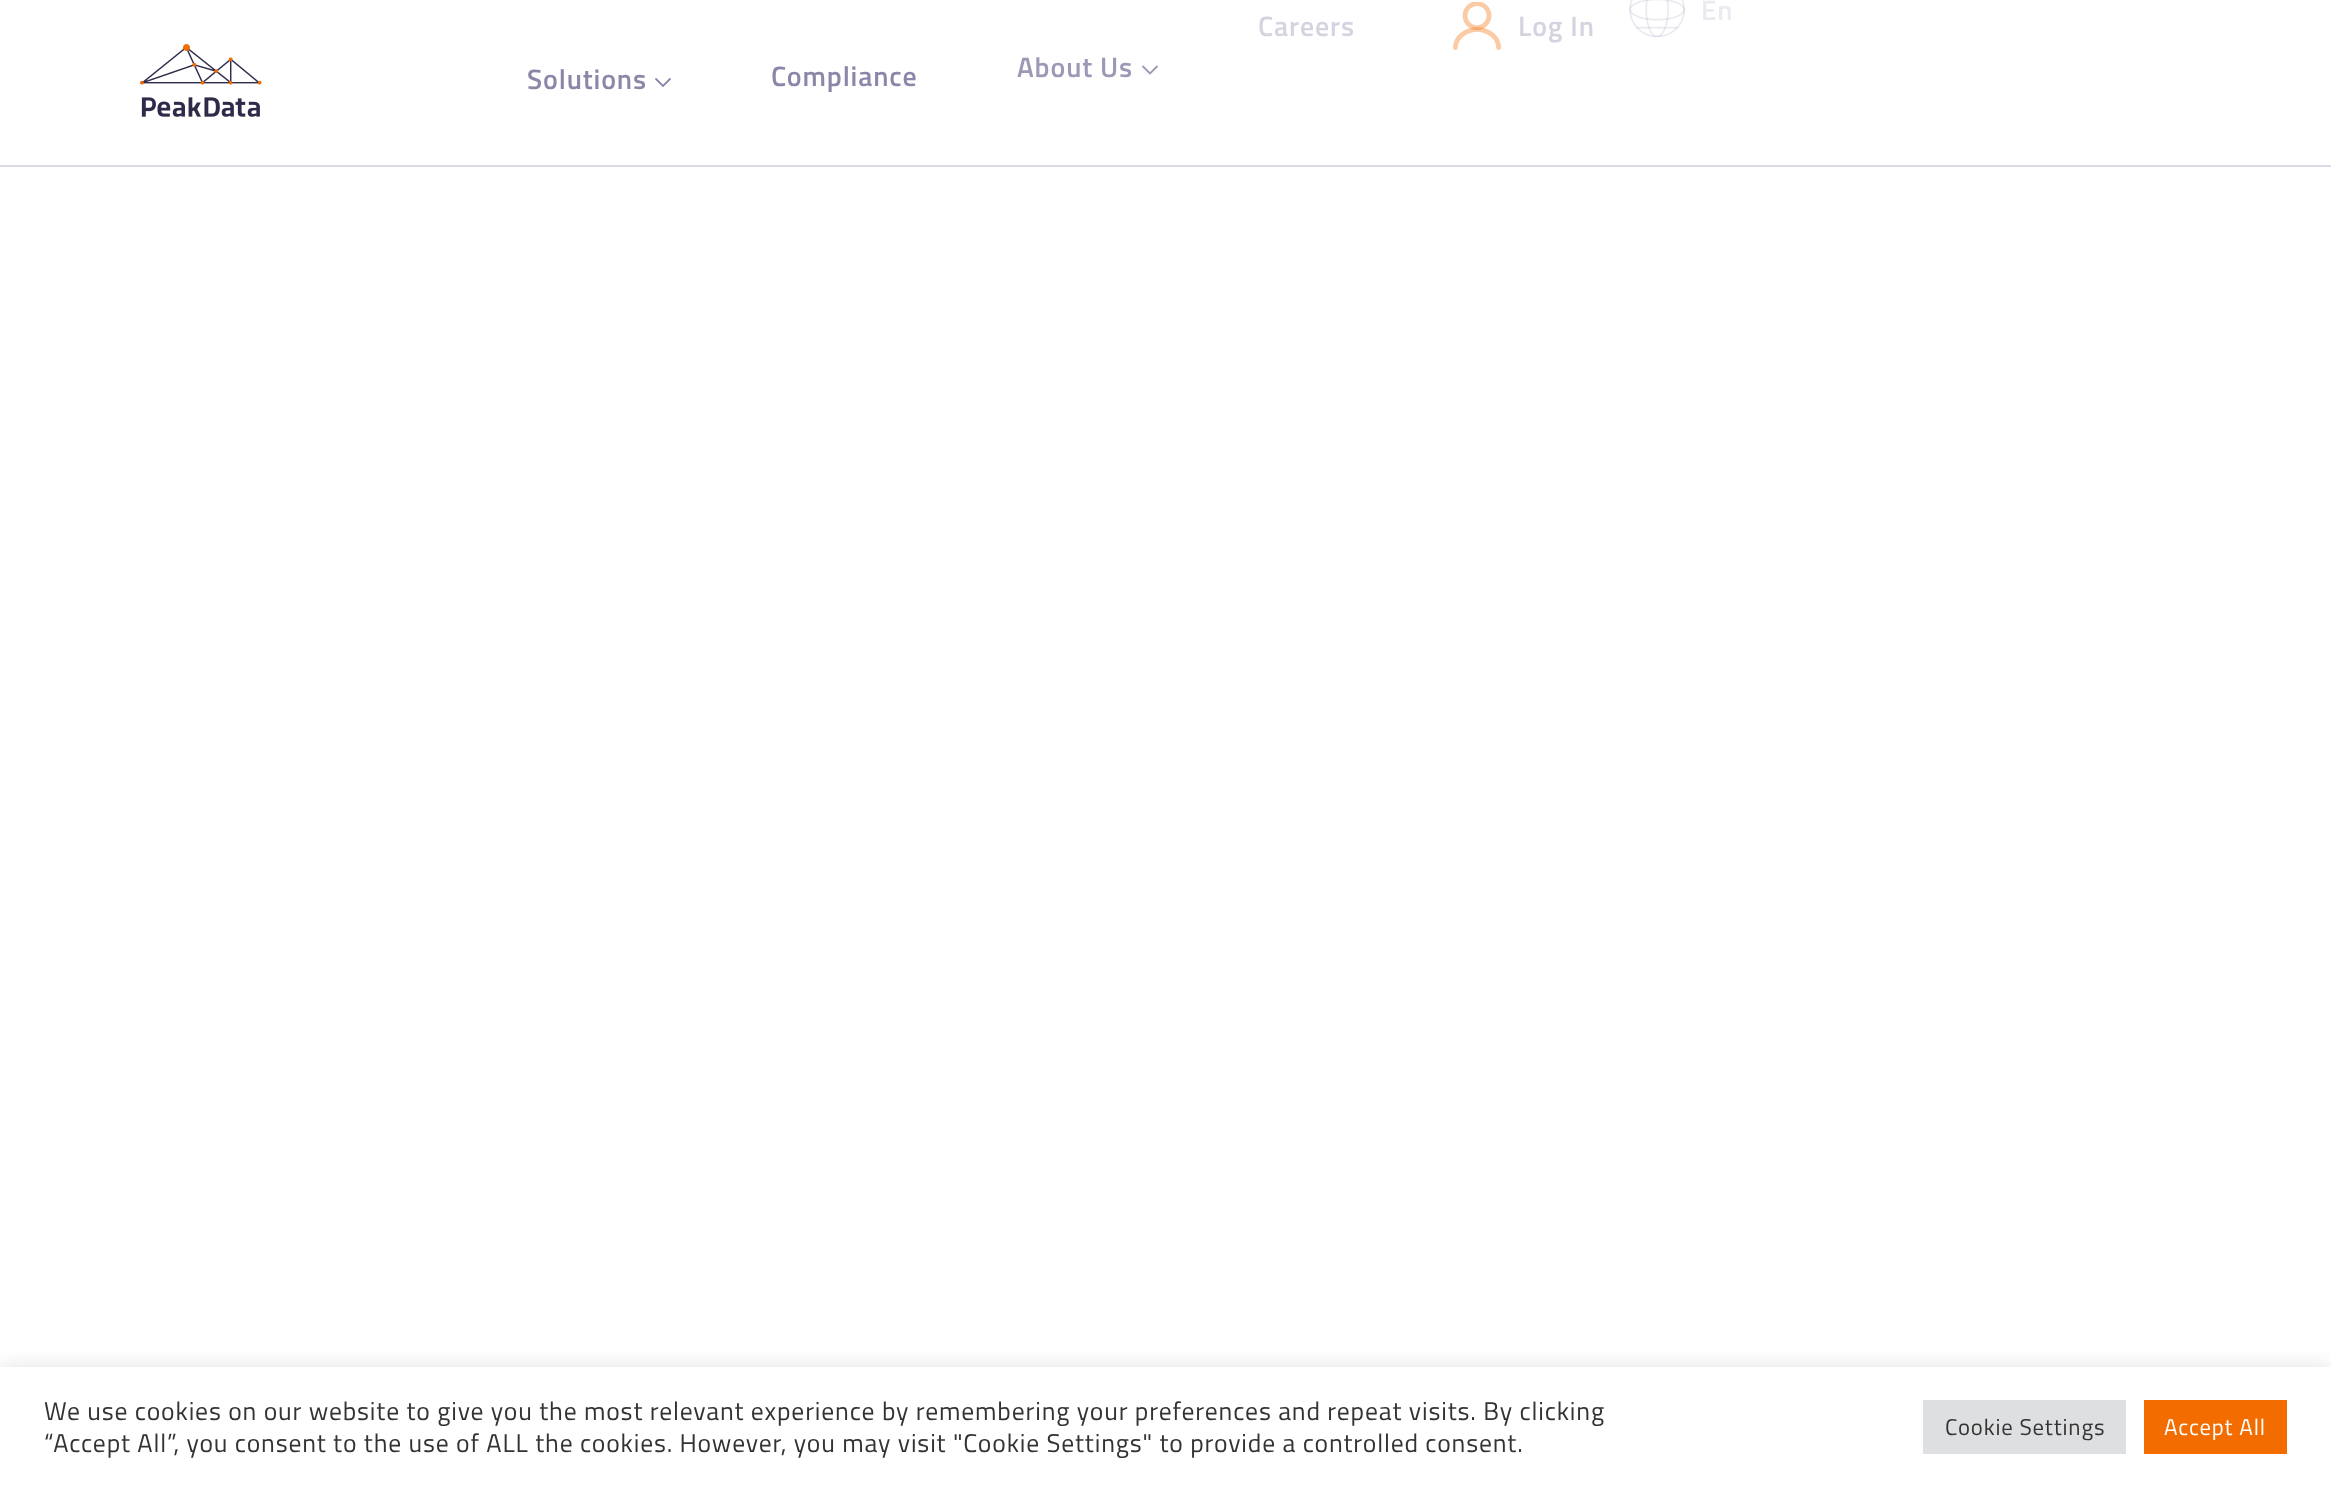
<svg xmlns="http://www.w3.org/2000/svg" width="2331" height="1487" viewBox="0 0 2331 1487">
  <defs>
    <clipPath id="clip1"><rect x="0" y="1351" width="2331" height="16"/></clipPath>
    <filter id="blur1" x="-50%" y="-200%" width="200%" height="500%"><feGaussianBlur stdDeviation="9"/></filter>
  </defs>
  <rect width="100%" height="100%" fill="#ffffff"/>
  <rect x="0" y="165" width="2331" height="2" fill="#dcdae8"/>
  <image x="140" y="44" width="122" height="73" href="img1.png"/>
  <text x="1258" y="36" font-family="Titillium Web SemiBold" font-size="28" font-weight="600" letter-spacing="0.84" fill="#d5d3df">Careers</text>
  <text x="527" y="89" font-family="Titillium Web SemiBold" font-size="28" font-weight="600" letter-spacing="0.84" fill="#8c86a9">Solutions</text>
  <path d="M656 79L663 86L670 79" fill="none" stroke="#8c86a9" stroke-width="1.8" stroke-linecap="round"/>
  <text x="771" y="86" font-family="Titillium Web SemiBold" font-size="28" font-weight="600" letter-spacing="0.84" fill="#8c86a9">Compliance</text>
  <text x="1017" y="77" font-family="Titillium Web SemiBold" font-size="28" font-weight="600" letter-spacing="0.84" fill="#9d98b5">About Us</text>
  <path d="M1143 66.5L1150 73.5L1157 66.5" fill="none" stroke="#9d98b5" stroke-width="1.8" stroke-linecap="round"/>
  <image x="1629" y="0" width="56" height="37" href="img2.png"/>
  <text x="1701" y="20" font-family="Titillium Web SemiBold" font-size="28" font-weight="600" letter-spacing="0.84" fill="#ebeaf0">En</text>
  <image x="1453" y="2" width="48" height="48" href="img3.png"/>
  <text x="1518" y="36" font-family="Titillium Web SemiBold" font-size="28" font-weight="600" letter-spacing="0.84" fill="#d5d3df">Log In</text>
  <g clip-path="url(#clip1)">
    <rect x="0" y="1365" width="2331" height="121" fill="#acabab" fill-opacity="0.3" filter="url(#blur1)"/>
  </g>
  <text x="44" y="1420" font-family="Titillium Web" font-size="25.67" letter-spacing="0.84" fill="#333333">We use cookies on our website to give you the most relevant experience by remembering your preferences and repeat visits. By clicking</text>
  <text x="44" y="1452" font-family="Titillium Web" font-size="25.67" letter-spacing="0.84" fill="#333333">“Accept All”, you consent to the use of ALL the cookies. However, you may visit "Cookie Settings" to provide a controlled consent.</text>
  <rect x="1923" y="1400" width="203" height="54" fill="#dedfe0"/>
  <text x="1945" y="1435" font-family="Titillium Web" font-size="22.75" letter-spacing="0.84" fill="#333333">Cookie Settings</text>
  <rect x="2144" y="1400" width="143" height="54" fill="#f36c00"/>
  <text x="2164" y="1435" font-family="Titillium Web" font-size="22.75" letter-spacing="0.84" fill="#ffffff">Accept All</text>
</svg>
